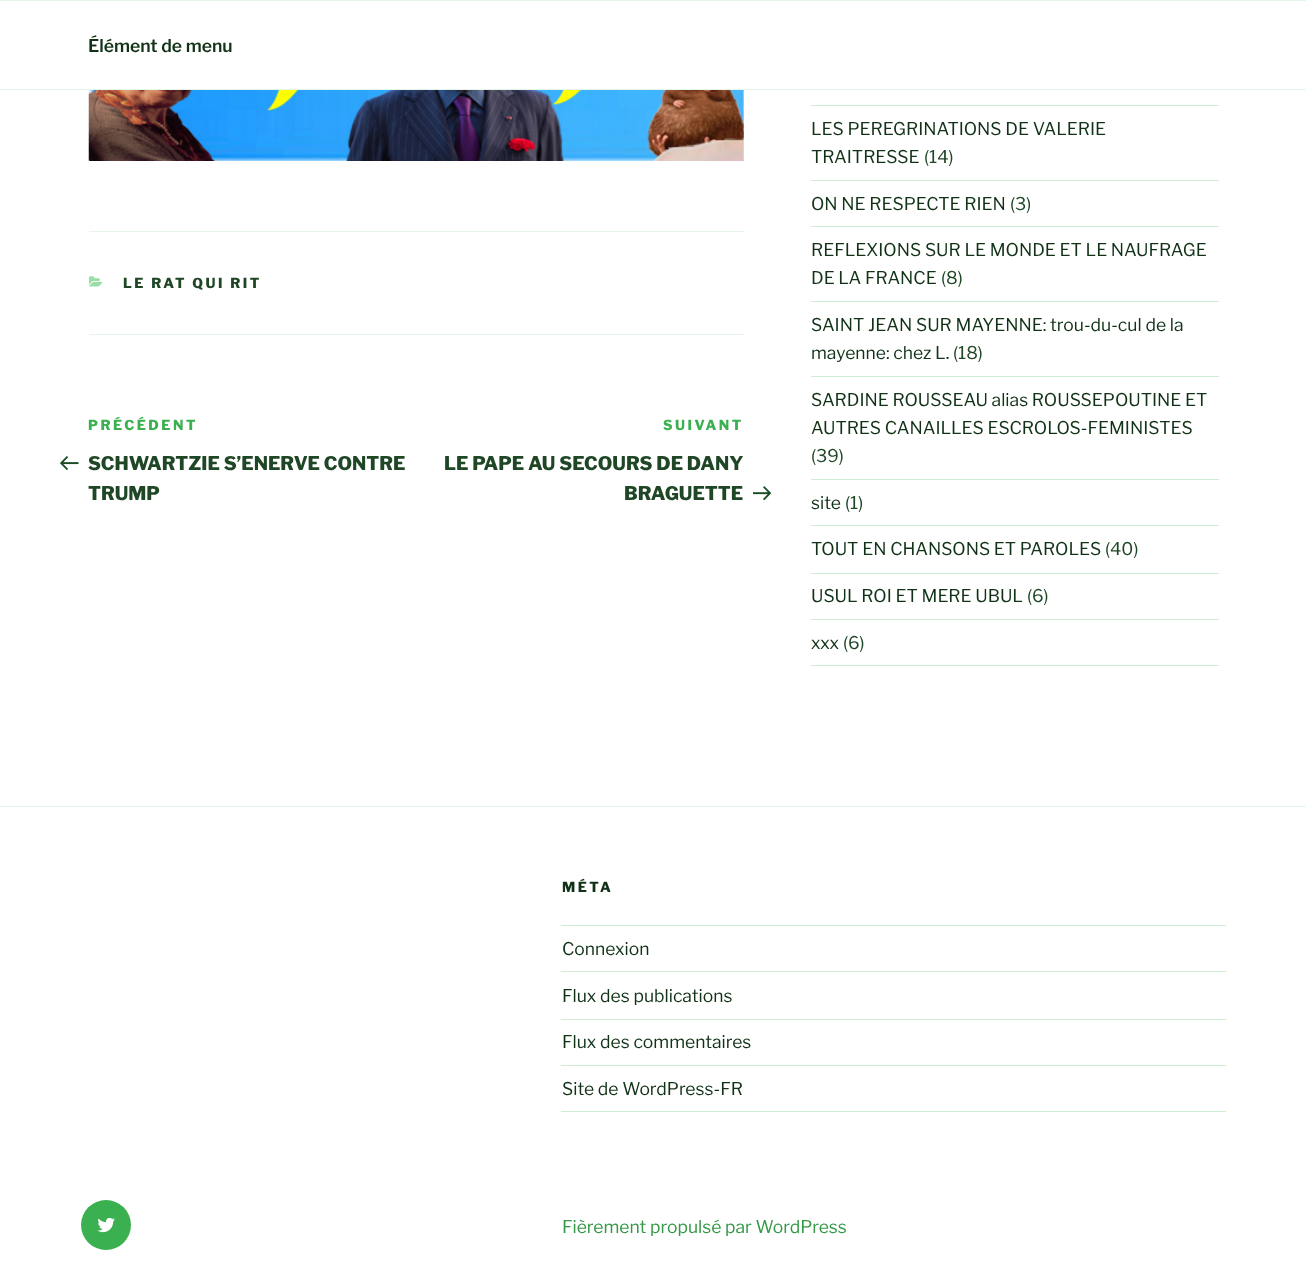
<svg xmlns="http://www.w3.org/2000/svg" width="1306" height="1286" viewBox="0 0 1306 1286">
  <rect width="100%" height="100%" fill="#ffffff"/>
  <rect x="0" y="0" width="1306" height="1" fill="#e4f6e7"/>
  <rect x="0" y="89" width="1306" height="1" fill="#e4f6e7"/>
  <text x="88" y="52" font-family="Libre Franklin" font-size="17.5" font-weight="600" fill="#113217">Élément de menu</text>
  <image x="88" y="90" width="656" height="71" href="img1.png"/>
  <rect x="89" y="231" width="655" height="1" fill="#e4f6e7"/>
  <rect x="89" y="334" width="655" height="1" fill="#e4f6e7"/>
  <image x="89" y="276" width="14" height="11" href="img2.png"/>
  <text x="123" y="288" font-family="Libre Franklin" font-size="13.75" font-weight="800" letter-spacing="2.5" fill="#1f4726">LE RAT QUI RIT</text>
  <text x="88" y="430" font-family="Libre Franklin" font-size="13.75" font-weight="800" letter-spacing="2.5" fill="#3bb050">PRÉCÉDENT</text>
  <image x="60" y="456" width="19" height="14" href="img3.png"/>
  <text x="88" y="470" font-family="Libre Franklin" font-size="18.75" font-weight="800" fill="#1f4726">SCHWARTZIE S’ENERVE CONTRE</text>
  <text x="88" y="500" font-family="Libre Franklin" font-size="18.75" font-weight="800" fill="#1f4726">TRUMP</text>
  <text x="663" y="430" font-family="Libre Franklin" font-size="13.75" font-weight="800" letter-spacing="2.5" fill="#3bb050">SUIVANT</text>
  <text x="444" y="470" font-family="Libre Franklin" font-size="18.75" font-weight="800" fill="#1f4726">LE PAPE AU SECOURS DE DANY</text>
  <text x="624" y="500" font-family="Libre Franklin" font-size="18.75" font-weight="800" fill="#1f4726">BRAGUETTE</text>
  <image x="753" y="486" width="18" height="15" href="img4.png"/>
  <rect x="811" y="105" width="408" height="1" fill="#cdeed3"/>
  <rect x="811" y="180" width="408" height="1" fill="#cdeed3"/>
  <text x="811" y="135" font-family="Libre Franklin" font-size="17.5" fill="#113217">LES PEREGRINATIONS DE VALERIE</text>
  <text x="811" y="163" font-family="Libre Franklin" font-size="17.5" fill="#113217">TRAITRESSE</text>
  <text x="924" y="163" font-family="Libre Franklin" font-size="17.5" fill="#1f4726">(14)</text>
  <rect x="811" y="226" width="408" height="1" fill="#cdeed3"/>
  <text x="811" y="210" font-family="Libre Franklin" font-size="17.5" fill="#113217">ON NE RESPECTE RIEN</text>
  <text x="1010" y="210" font-family="Libre Franklin" font-size="17.5" fill="#1f4726">(3)</text>
  <rect x="811" y="301" width="408" height="1" fill="#cdeed3"/>
  <text x="811" y="256" font-family="Libre Franklin" font-size="17.5" fill="#113217">REFLEXIONS SUR LE MONDE ET LE NAUFRAGE</text>
  <text x="811" y="284" font-family="Libre Franklin" font-size="17.5" fill="#113217">DE LA FRANCE</text>
  <text x="941" y="284" font-family="Libre Franklin" font-size="17.5" fill="#1f4726">(8)</text>
  <rect x="811" y="376" width="408" height="1" fill="#cdeed3"/>
  <text x="811" y="331" font-family="Libre Franklin" font-size="17.5" fill="#113217">SAINT JEAN SUR MAYENNE: trou-du-cul de la</text>
  <text x="811" y="359" font-family="Libre Franklin" font-size="17.5" fill="#113217">mayenne: chez L.</text>
  <text x="953" y="359" font-family="Libre Franklin" font-size="17.5" fill="#1f4726">(18)</text>
  <rect x="811" y="479" width="408" height="1" fill="#cdeed3"/>
  <text x="811" y="406" font-family="Libre Franklin" font-size="17.5" fill="#113217">SARDINE ROUSSEAU alias ROUSSEPOUTINE ET</text>
  <text x="811" y="434" font-family="Libre Franklin" font-size="17.5" fill="#113217">AUTRES CANAILLES ESCROLOS-FEMINISTES</text>
  <text x="811" y="462" font-family="Libre Franklin" font-size="17.5" fill="#1f4726">(39)</text>
  <rect x="811" y="525" width="408" height="1" fill="#cdeed3"/>
  <text x="811" y="509" font-family="Libre Franklin" font-size="17.5" fill="#113217">site</text>
  <text x="845" y="509" font-family="Libre Franklin" font-size="17.5" fill="#1f4726">(1)</text>
  <rect x="811" y="573" width="408" height="1" fill="#cdeed3"/>
  <text x="811" y="555" font-family="Libre Franklin" font-size="17.5" fill="#113217">TOUT EN CHANSONS ET PAROLES</text>
  <text x="1105" y="555" font-family="Libre Franklin" font-size="17.5" fill="#1f4726">(40)</text>
  <rect x="811" y="619" width="408" height="1" fill="#cdeed3"/>
  <text x="811" y="602" font-family="Libre Franklin" font-size="17.5" fill="#113217">USUL ROI ET MERE UBUL</text>
  <text x="1027" y="602" font-family="Libre Franklin" font-size="17.5" fill="#1f4726">(6)</text>
  <rect x="811" y="665" width="408" height="1" fill="#cdeed3"/>
  <text x="811" y="649" font-family="Libre Franklin" font-size="17.5" fill="#113217">xxx</text>
  <text x="843" y="649" font-family="Libre Franklin" font-size="17.5" fill="#1f4726">(6)</text>
  <rect x="0" y="806" width="1306" height="1" fill="#e4f6e7"/>
  <text x="562" y="892" font-family="Libre Franklin" font-size="13.75" font-weight="800" letter-spacing="2.5" fill="#113217">MÉTA</text>
  <rect x="561" y="925" width="665" height="1" fill="#cdeed3"/>
  <rect x="561" y="971" width="665" height="1" fill="#cdeed3"/>
  <text x="562" y="955" font-family="Libre Franklin" font-size="17.5" fill="#113217">Connexion</text>
  <rect x="561" y="1019" width="665" height="1" fill="#cdeed3"/>
  <text x="562" y="1002" font-family="Libre Franklin" font-size="17.5" fill="#113217">Flux des publications</text>
  <rect x="561" y="1065" width="665" height="1" fill="#cdeed3"/>
  <text x="562" y="1048" font-family="Libre Franklin" font-size="17.5" fill="#113217">Flux des commentaires</text>
  <rect x="561" y="1111" width="665" height="1" fill="#cdeed3"/>
  <text x="562" y="1095" font-family="Libre Franklin" font-size="17.5" fill="#113217">Site de WordPress-FR</text>
  <circle cx="106" cy="1225" r="25" fill="#3bb050"/>
  <image x="97" y="1217" width="18" height="16" href="img5.png"/>
  <text x="562" y="1233" font-family="Libre Franklin" font-size="17.5" fill="#339946">Fièrement propulsé par WordPress</text>
</svg>
